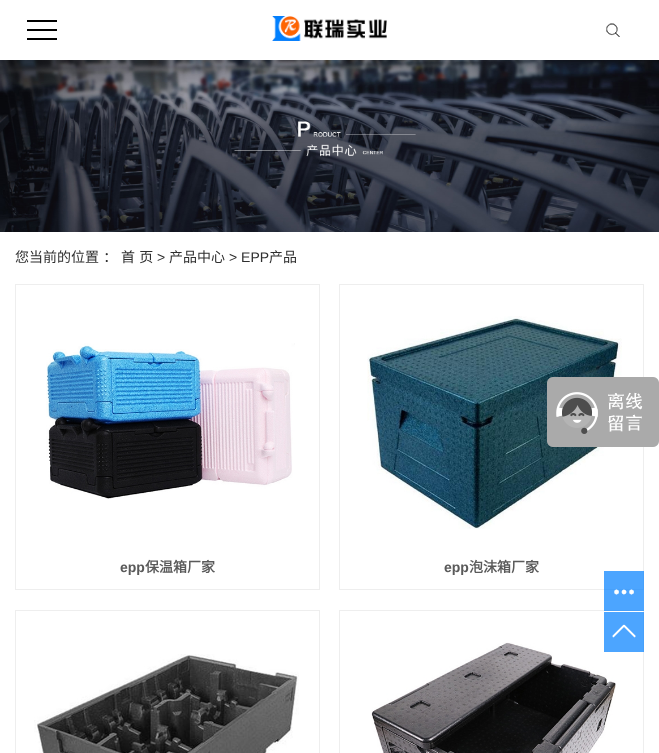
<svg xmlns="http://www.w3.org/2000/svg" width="659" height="753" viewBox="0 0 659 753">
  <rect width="100%" height="100%" fill="#ffffff"/>
  <rect x="27" y="20" width="30" height="2" fill="#000000"/>
  <rect x="27" y="29" width="30" height="2" fill="#000000"/>
  <rect x="27" y="38" width="30" height="2" fill="#000000"/>
  <image x="272" y="16" width="115" height="25" href="img1.png"/>
  <image x="606" y="23" width="14" height="14" href="img2.png"/>
  <image x="0" y="60" width="659" height="172" href="img3.png"/>
  <text x="15" y="262" word-spacing="1" font-family="Noto Sans CJK SC" font-size="14" fill="#2f2f2f">您当前的位置 ：</text>
  <text x="121" y="262" word-spacing="1" font-family="Noto Sans CJK SC" font-size="14" fill="#2f2f2f">首 页</text>
  <text x="157" y="262" font-family="Liberation Sans" font-size="14" fill="#2f2f2f">&gt;</text>
  <text x="169" y="262" font-family="Noto Sans CJK SC" font-size="14" fill="#2f2f2f">产品中心</text>
  <text x="229" y="262" font-family="Liberation Sans" font-size="14" fill="#2f2f2f">&gt; EPP</text>
  <text x="269" y="262" font-family="Noto Sans CJK SC" font-size="14" fill="#2f2f2f">产品</text>
  <rect x="339.5" y="284.5" width="304" height="305" fill="none" stroke="#eeeeee"/>
  <image x="367" y="316" width="255" height="213" href="img6.png"/>
  <image x="547" y="377" width="112" height="70" href="img4.png"/>
  <rect x="15.5" y="284.5" width="304" height="305" fill="none" stroke="#eeeeee"/>
  <image x="46" y="343" width="249" height="156" href="img5.png"/>
  <text x="120" y="572" font-family="Liberation Sans" font-size="14" font-weight="bold" fill="#5a5a5a">epp</text>
  <text x="145" y="572" font-family="Noto Sans CJK SC" font-size="14" font-weight="bold" fill="#5a5a5a">保温箱厂家</text>
  <text x="444" y="572" font-family="Liberation Sans" font-size="14" font-weight="bold" fill="#5a5a5a">epp</text>
  <text x="469" y="572" font-family="Noto Sans CJK SC" font-size="14" font-weight="bold" fill="#5a5a5a">泡沫箱厂家</text>
  <rect x="15.5" y="610.5" width="304" height="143" fill="none" stroke="#eeeeee"/>
  <image x="34" y="654" width="265" height="99" href="img7.png"/>
  <rect x="339.5" y="610.5" width="304" height="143" fill="none" stroke="#eeeeee"/>
  <image x="371" y="642" width="245" height="111" href="img8.png"/>
  <rect x="604" y="571" width="40" height="40" fill="#007fff" fill-opacity="0.7"/>
  <image x="614" y="589" width="20" height="6" href="img9.png"/>
  <rect x="604" y="612" width="40" height="40" fill="#007fff" fill-opacity="0.7"/>
  <image x="612" y="624" width="24" height="14" href="img10.png"/>
</svg>
